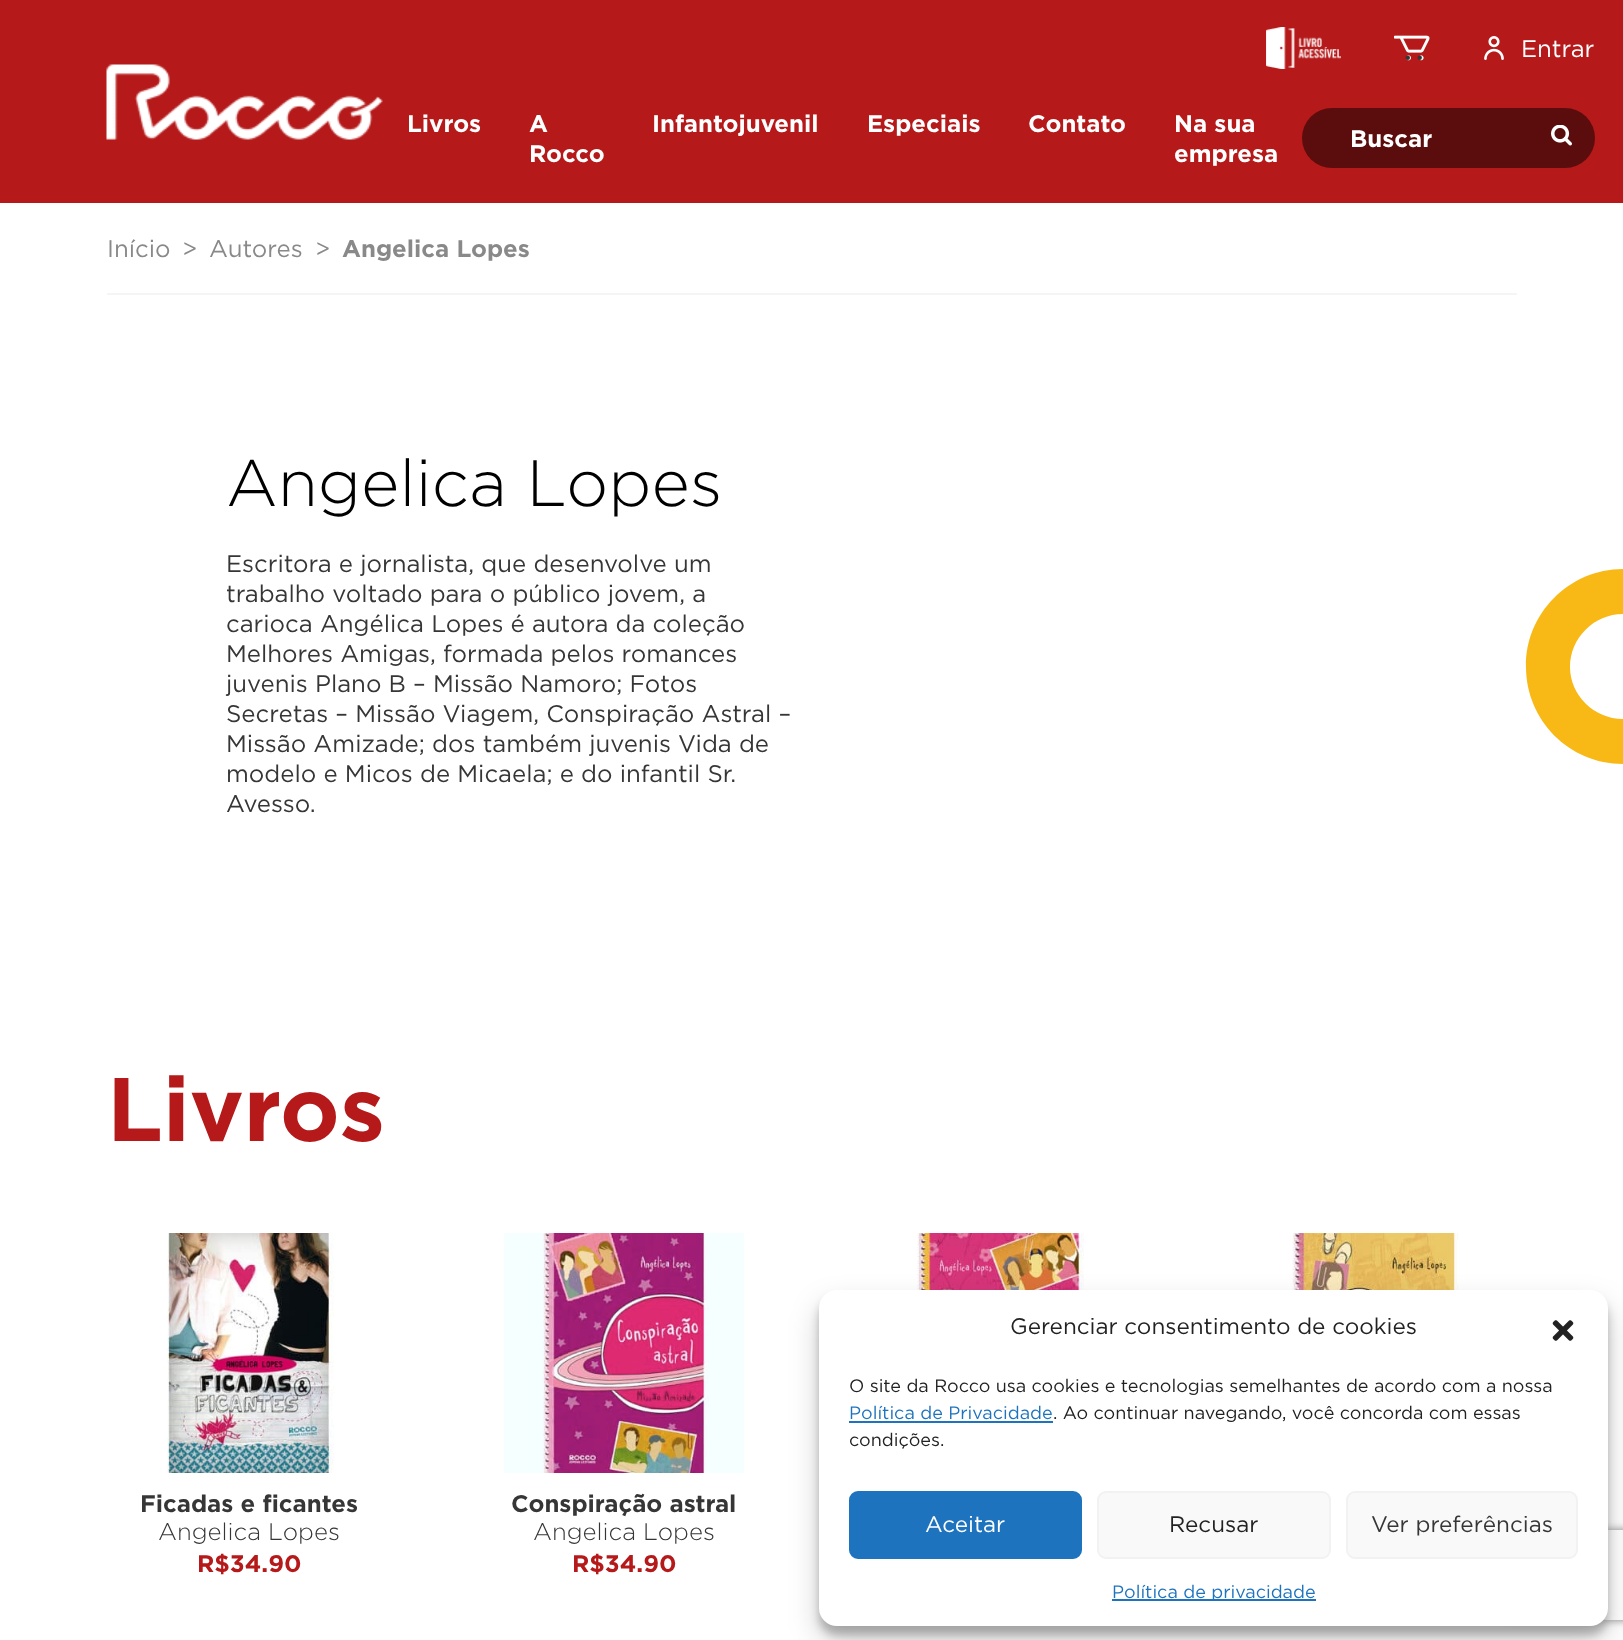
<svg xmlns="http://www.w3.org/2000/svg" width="1623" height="1640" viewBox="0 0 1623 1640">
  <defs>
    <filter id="blur1" x="-50%" y="-200%" width="200%" height="500%"><feGaussianBlur stdDeviation="4.5"/></filter>
    <filter id="blur2" x="-50%" y="-200%" width="200%" height="500%"><feGaussianBlur stdDeviation="15"/></filter>
    <clipPath id="clip1"><path d="M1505 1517H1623V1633H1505ZM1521 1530H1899C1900.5 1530 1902 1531.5 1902 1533V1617C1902 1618.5 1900.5 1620 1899 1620H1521C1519.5 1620 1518 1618.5 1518 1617V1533C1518 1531.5 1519.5 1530 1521 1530Z" clip-rule="evenodd"/></clipPath>
    <filter id="blur3" x="-50%" y="-200%" width="200%" height="500%"><feGaussianBlur stdDeviation="4"/></filter>
  </defs>
  <rect width="100%" height="100%" fill="#ffffff"/>
  <rect x="0" y="0" width="1623" height="203" fill="#b5191a"/>
  <image x="1266" y="27" width="75" height="42" href="img1.png"/>
  <image x="1394" y="35" width="36" height="26" href="img2.png"/>
  <circle cx="1407.8" cy="57.8" r="2.2" fill="#363636"/>
  <circle cx="1419.7" cy="57.8" r="2.2" fill="#363636"/>
  <image x="1484" y="36" width="20" height="24" href="img3.png"/>
  <text x="1521" y="57" font-family="Gotham" font-size="24" fill="#ffffff">Entrar</text>
  <image x="106" y="64" width="277" height="76" href="img4.png"/>
  <text x="407" y="132" font-family="Gotham" font-size="24" font-weight="bold" fill="#ffffff">Livros</text>
  <text x="529" y="132" font-family="Gotham" font-size="24" font-weight="bold" fill="#ffffff">A</text>
  <text x="529" y="162" font-family="Gotham" font-size="24" font-weight="bold" fill="#ffffff">Rocco</text>
  <text x="652" y="132" font-family="Gotham" font-size="24" font-weight="bold" fill="#ffffff">Infantojuvenil</text>
  <text x="867" y="132" font-family="Gotham" font-size="24" font-weight="bold" fill="#ffffff">Especiais</text>
  <text x="1028" y="132" font-family="Gotham" font-size="24" font-weight="bold" fill="#ffffff">Contato</text>
  <text x="1174" y="132" font-family="Gotham" font-size="24" font-weight="bold" fill="#ffffff">Na sua</text>
  <text x="1174" y="162" font-family="Gotham" font-size="24" font-weight="bold" fill="#ffffff">empresa</text>
  <rect x="1302" y="108" width="293" height="60" rx="30" fill="#5b0d0d"/>
  <text x="1350" y="147" font-family="Gotham" font-size="24" font-weight="bold" fill="#ffffff">Buscar</text>
  <image x="1551" y="125" width="21" height="21" href="img5.png"/>
  <rect x="107" y="293" width="1410" height="2" fill="#f5f5f5"/>
  <text x="107" y="257" font-family="Gotham" font-size="24" fill="#898989">Início</text>
  <text x="182" y="257" font-family="Gotham" font-size="24" fill="#898989">&gt;</text>
  <text x="209" y="257" font-family="Gotham" font-size="24" fill="#898989">Autores</text>
  <text x="315" y="257" font-family="Gotham" font-size="24" fill="#898989">&gt;</text>
  <text x="342" y="257" font-family="Gotham" font-size="24" font-weight="bold" fill="#898989">Angelica Lopes</text>
  <text x="226" y="506" font-family="Gotham" font-size="65.5" font-weight="300" fill="#000000">Angelica Lopes</text>
  <text x="226" y="572" font-family="Gotham" font-size="24" fill="#363636">Escritora e jornalista, que desenvolve um</text>
  <text x="226" y="602" font-family="Gotham" font-size="24" fill="#363636">trabalho voltado para o público jovem, a</text>
  <text x="226" y="632" font-family="Gotham" font-size="24" fill="#363636">carioca Angélica Lopes é autora da coleção</text>
  <text x="226" y="662" font-family="Gotham" font-size="24" fill="#363636">Melhores Amigas, formada pelos romances</text>
  <text x="226" y="692" font-family="Gotham" font-size="24" fill="#363636">juvenis Plano B – Missão Namoro; Fotos</text>
  <text x="226" y="722" font-family="Gotham" font-size="24" fill="#363636">Secretas – Missão Viagem, Conspiração Astral –</text>
  <text x="226" y="752" font-family="Gotham" font-size="24" fill="#363636">Missão Amizade; dos também juvenis Vida de</text>
  <text x="226" y="782" font-family="Gotham" font-size="24" fill="#363636">modelo e Micos de Micaela; e do infantil Sr.</text>
  <text x="226" y="812" font-family="Gotham" font-size="24" fill="#363636">Avesso.</text>
  <path d="M1526 667C1526 720 1569 764 1623 764V719C1594 719 1570 695 1570 667C1570 638 1594 614 1623 614V569C1569 569 1525 614 1526 667" fill="#f8b916"/>
  <text x="107" y="1141" font-family="Gotham" font-size="90" font-weight="bold" fill="#b5191a">Livros</text>
  <image x="917" y="1233" width="167" height="57" href="img6.png"/>
  <image x="1292" y="1233" width="167" height="57" href="img7.png"/>
  <image x="167" y="1233" width="167" height="240" href="img8.png"/>
  <text x="140" y="1512" font-family="Gotham" font-size="24" font-weight="bold" fill="#363636">Ficadas e ficantes</text>
  <text x="158" y="1540" font-family="Gotham" font-size="24" font-weight="300" fill="#363636">Angelica Lopes</text>
  <text x="197" y="1572" font-family="Gotham" font-size="24" font-weight="bold" fill="#b5191a">R$34.90</text>
  <image x="504" y="1233" width="240" height="240" href="img9.png"/>
  <text x="511" y="1512" font-family="Gotham" font-size="24" font-weight="bold" fill="#363636">Conspiração astral</text>
  <text x="533" y="1540" font-family="Gotham" font-size="24" font-weight="300" fill="#363636">Angelica Lopes</text>
  <text x="572" y="1572" font-family="Gotham" font-size="24" font-weight="bold" fill="#b5191a">R$34.90</text>
  <rect x="819" y="1299" width="789" height="336" rx="18" fill="#000000" fill-opacity="0.23" filter="url(#blur1)"/>
  <rect x="819" y="1305" width="789" height="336" rx="18" fill="#000000" fill-opacity="0.19" filter="url(#blur2)"/>
  <g clip-path="url(#clip1)">
    <rect x="1518" y="1530" width="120" height="90" rx="3" fill="#808080" filter="url(#blur3)"/>
  </g>
  <rect x="819" y="1290" width="789" height="336" rx="18" fill="#ffffff"/>
  <text x="1010" y="1334" font-family="Gotham" font-size="22.5" fill="#222222">Gerenciar consentimento de cookies</text>
  <image x="1552" y="1320" width="22" height="21" href="img10.png"/>
  <text x="849" y="1392" font-family="Gotham" font-size="18" fill="#222222">O site da Rocco usa cookies e tecnologias semelhantes de acordo com a nossa</text>
  <text x="849" y="1419" font-family="Gotham" font-size="18" fill="#1e73be">Política de Privacidade</text>
  <rect x="849" y="1421" width="204" height="2" fill="#1e73be"/>
  <text x="1053" y="1419" font-family="Gotham" font-size="18" fill="#222222">. Ao continuar navegando, você concorda com essas</text>
  <text x="849" y="1446" font-family="Gotham" font-size="18" fill="#222222">condições.</text>
  <rect x="850" y="1492" width="231" height="66" rx="8" fill="#1e73be" stroke="#1e73be" stroke-width="2"/>
  <text x="925" y="1532" font-family="Gotham" font-size="22.5" fill="#ffffff">Aceitar</text>
  <rect x="1098" y="1492" width="232" height="66" rx="8" fill="#f9f9f9" stroke="#f2f2f2" stroke-width="2"/>
  <text x="1169" y="1532" font-family="Gotham" font-size="22.5" fill="#222222">Recusar</text>
  <rect x="1347" y="1492" width="230" height="66" rx="8" fill="#f9f9f9" stroke="#f2f2f2" stroke-width="2"/>
  <text x="1371" y="1532" font-family="Gotham" font-size="22.5" fill="#363636">Ver preferências</text>
  <rect x="1112" y="1599" width="204" height="2" fill="#1e73be"/>
  <text x="1112" y="1598" font-family="Gotham" font-size="18" fill="#1e73be">Política de privacidade</text>
</svg>
